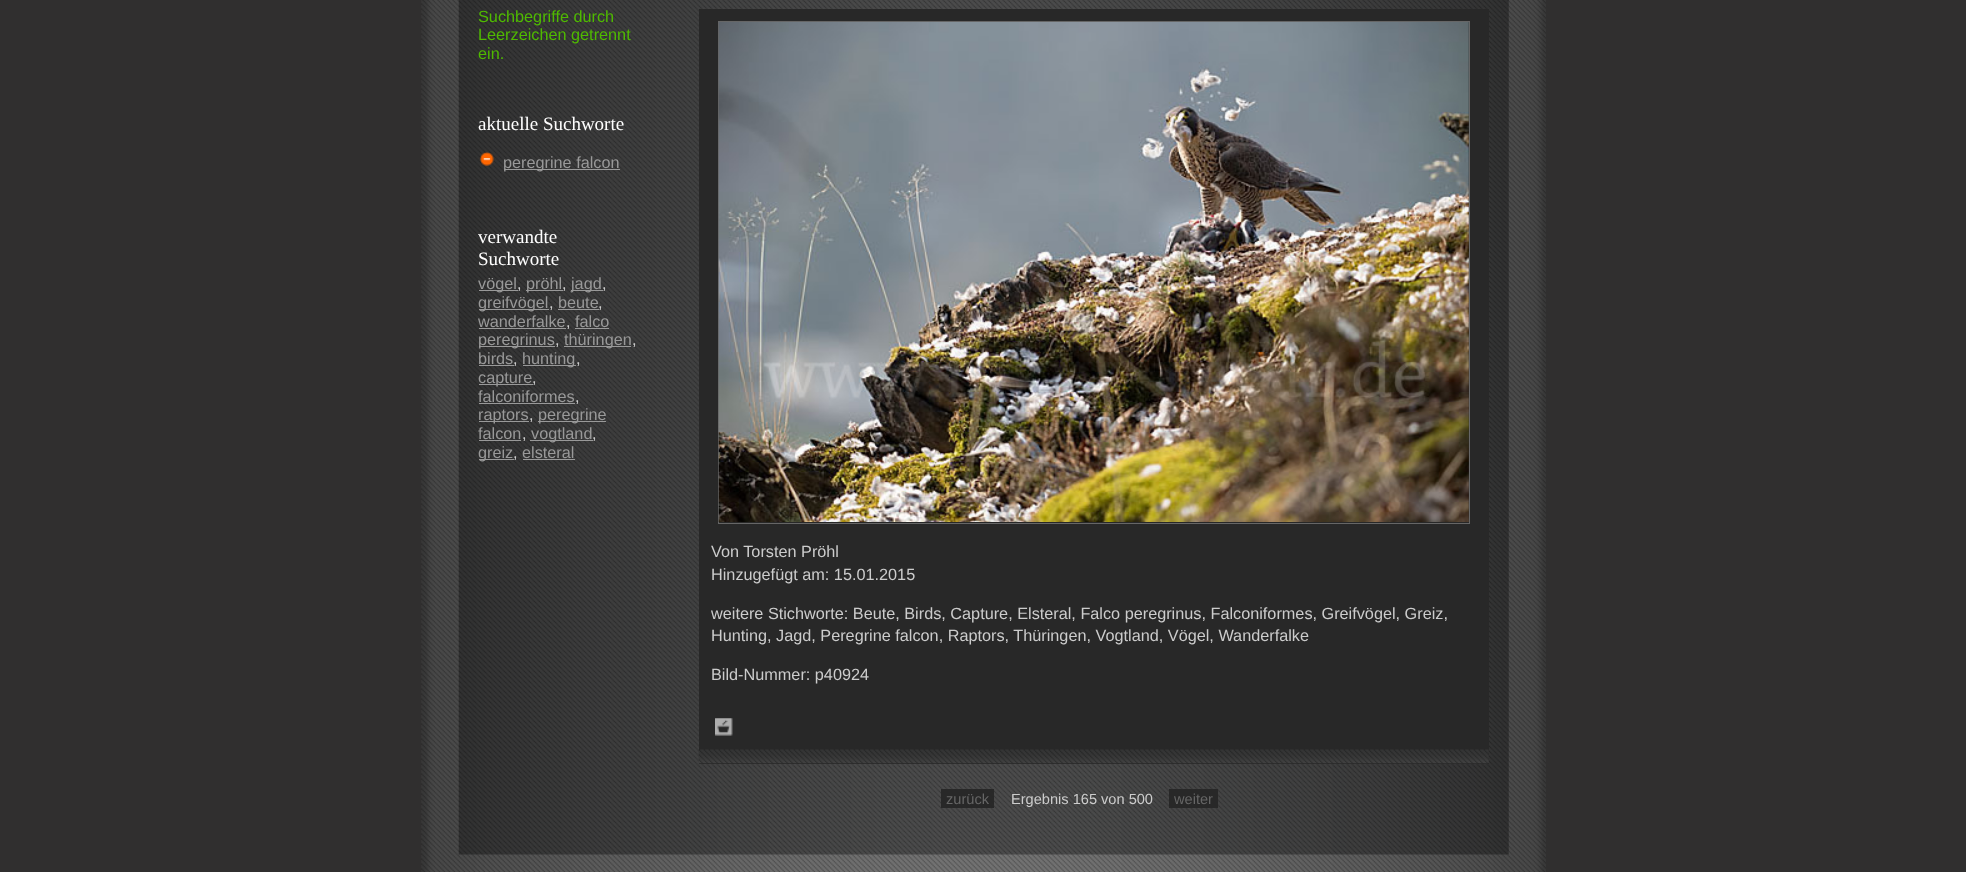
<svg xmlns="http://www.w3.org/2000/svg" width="1966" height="872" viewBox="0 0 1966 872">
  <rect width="100%" height="100%" fill="#302f2f"/>
  <image x="421" y="0" width="1125" height="872" href="img1.png"/>
  <image x="458" y="0" width="1051" height="855" href="img2.png"/>
  <text x="478" y="22" font-family="Liberation Sans" font-size="16.25" fill="#4fba00">Suchbegriffe durch</text>
  <text x="478" y="40" font-family="Liberation Sans" font-size="16.25" fill="#4fba00">Leerzeichen getrennt</text>
  <text x="478" y="59" font-family="Liberation Sans" font-size="16.25" fill="#4fba00">ein.</text>
  <text x="478" y="130" font-family="Liberation Serif" font-size="19" fill="#ffffff">aktuelle Suchworte</text>
  <image x="479" y="152" width="15" height="14" href="img3.png"/>
  <rect x="504" y="169" width="116" height="1" fill="#999999"/>
  <text x="503" y="168" font-family="Liberation Sans" font-size="16.25" fill="#999999">peregrine falcon</text>
  <text x="478" y="243" font-family="Liberation Serif" font-size="19" fill="#ffffff">verwandte</text>
  <text x="478" y="265" font-family="Liberation Serif" font-size="19" fill="#ffffff">Suchworte</text>
  <rect x="479" y="290" width="39" height="1" fill="#999999"/>
  <text x="478" y="289" font-family="Liberation Sans" font-size="16.25" fill="#999999">vögel</text>
  <text x="517" y="289" font-family="Liberation Sans" font-size="16.25" fill="#cccccc">,</text>
  <rect x="526" y="290" width="37" height="1" fill="#999999"/>
  <text x="526" y="289" font-family="Liberation Sans" font-size="16.25" fill="#999999">pröhl</text>
  <text x="562" y="289" font-family="Liberation Sans" font-size="16.25" fill="#cccccc">,</text>
  <rect x="571" y="290" width="32" height="1" fill="#999999"/>
  <text x="571" y="289" font-family="Liberation Sans" font-size="16.25" fill="#999999">jagd</text>
  <text x="602" y="289" font-family="Liberation Sans" font-size="16.25" fill="#cccccc">,</text>
  <rect x="479" y="309" width="70" height="1" fill="#999999"/>
  <text x="478" y="308" font-family="Liberation Sans" font-size="16.25" fill="#999999">greifvögel</text>
  <text x="549" y="308" font-family="Liberation Sans" font-size="16.25" fill="#cccccc">,</text>
  <text x="558" y="308" font-family="Liberation Sans" font-size="16.25" fill="#999999">beute</text>
  <rect x="558" y="309" width="41" height="1" fill="#999999"/>
  <text x="598" y="308" font-family="Liberation Sans" font-size="16.25" fill="#cccccc">,</text>
  <text x="478" y="327" font-family="Liberation Sans" font-size="16.25" fill="#999999">wanderfalke</text>
  <rect x="479" y="328" width="87" height="1" fill="#999999"/>
  <text x="566" y="327" font-family="Liberation Sans" font-size="16.25" fill="#cccccc">,</text>
  <text x="575" y="327" font-family="Liberation Sans" font-size="16.25" fill="#999999">falco</text>
  <rect x="575" y="328" width="34" height="1" fill="#999999"/>
  <rect x="479" y="346" width="76" height="1" fill="#999999"/>
  <text x="478" y="345" font-family="Liberation Sans" font-size="16.25" fill="#999999">peregrinus</text>
  <text x="555" y="345" font-family="Liberation Sans" font-size="16.25" fill="#cccccc">,</text>
  <rect x="564" y="346" width="67" height="1" fill="#999999"/>
  <text x="564" y="345" font-family="Liberation Sans" font-size="16.25" fill="#999999">thüringen</text>
  <text x="632" y="345" font-family="Liberation Sans" font-size="16.25" fill="#cccccc">,</text>
  <text x="478" y="364" font-family="Liberation Sans" font-size="16.25" fill="#999999">birds</text>
  <rect x="479" y="365" width="35" height="1" fill="#999999"/>
  <text x="513" y="364" font-family="Liberation Sans" font-size="16.25" fill="#cccccc">,</text>
  <rect x="523" y="365" width="53" height="1" fill="#999999"/>
  <text x="522" y="364" font-family="Liberation Sans" font-size="16.25" fill="#999999">hunting</text>
  <text x="576" y="364" font-family="Liberation Sans" font-size="16.25" fill="#cccccc">,</text>
  <rect x="479" y="384" width="54" height="1" fill="#999999"/>
  <text x="478" y="383" font-family="Liberation Sans" font-size="16.25" fill="#999999">capture</text>
  <text x="532" y="383" font-family="Liberation Sans" font-size="16.25" fill="#cccccc">,</text>
  <text x="478" y="402" font-family="Liberation Sans" font-size="16.25" fill="#999999">falconiformes</text>
  <rect x="479" y="403" width="96" height="1" fill="#999999"/>
  <text x="575" y="402" font-family="Liberation Sans" font-size="16.25" fill="#cccccc">,</text>
  <rect x="479" y="421" width="50" height="1" fill="#999999"/>
  <text x="478" y="420" font-family="Liberation Sans" font-size="16.25" fill="#999999">raptors</text>
  <text x="529" y="420" font-family="Liberation Sans" font-size="16.25" fill="#cccccc">,</text>
  <rect x="538" y="421" width="68" height="1" fill="#999999"/>
  <text x="538" y="420" font-family="Liberation Sans" font-size="16.25" fill="#999999">peregrine</text>
  <text x="478" y="439" font-family="Liberation Sans" font-size="16.25" fill="#999999">falcon</text>
  <rect x="479" y="440" width="42" height="1" fill="#999999"/>
  <text x="522" y="439" font-family="Liberation Sans" font-size="16.25" fill="#cccccc">,</text>
  <rect x="530" y="440" width="63" height="1" fill="#999999"/>
  <text x="531" y="439" font-family="Liberation Sans" font-size="16.25" fill="#999999">vogtland</text>
  <text x="592" y="439" font-family="Liberation Sans" font-size="16.25" fill="#cccccc">,</text>
  <rect x="479" y="459" width="35" height="1" fill="#999999"/>
  <text x="478" y="458" font-family="Liberation Sans" font-size="16.25" fill="#999999">greiz</text>
  <text x="513" y="458" font-family="Liberation Sans" font-size="16.25" fill="#cccccc">,</text>
  <text x="522" y="458" font-family="Liberation Sans" font-size="16.25" fill="#999999">elsteral</text>
  <rect x="523" y="459" width="52" height="1" fill="#999999"/>
  <rect x="699" y="9" width="790" height="755" fill="#282828"/>
  <rect x="718.5" y="21.5" width="751" height="502" fill="none" stroke="#666666"/>
  <image x="718" y="22" width="751" height="500" href="img4.png"/>
  <text x="711" y="557" font-family="Liberation Sans" font-size="16.25" fill="#cccccc">Von Torsten Pröhl</text>
  <text x="711" y="580" font-family="Liberation Sans" font-size="16.25" fill="#cccccc">Hinzugefügt am: 15.01.2015</text>
  <text x="711" y="619" font-family="Liberation Sans" font-size="16.25" fill="#cccccc">weitere Stichworte: Beute, Birds, Capture, Elsteral, Falco peregrinus, Falconiformes, Greifvögel, Greiz,</text>
  <text x="711" y="641" font-family="Liberation Sans" font-size="16.25" fill="#cccccc">Hunting, Jagd, Peregrine falcon, Raptors, Thüringen, Vogtland, Vögel, Wanderfalke</text>
  <text x="711" y="680" font-family="Liberation Sans" font-size="16.25" fill="#cccccc">Bild-Nummer: p40924</text>
  <image x="715" y="718" width="18" height="18" href="img5.png"/>
  <image x="698" y="749" width="791" height="15" href="img6.png"/>
  <rect x="941" y="789" width="53" height="19" fill="#282828"/>
  <text x="946" y="804" font-family="Liberation Sans" font-size="14.6" fill="#666666">zurück</text>
  <text x="1011" y="804" font-family="Liberation Sans" font-size="14.6" fill="#cccccc">Ergebnis 165 von 500</text>
  <rect x="1169" y="789" width="49" height="19" fill="#282828"/>
  <text x="1174" y="804" font-family="Liberation Sans" font-size="14.6" fill="#666666">weiter</text>
</svg>
